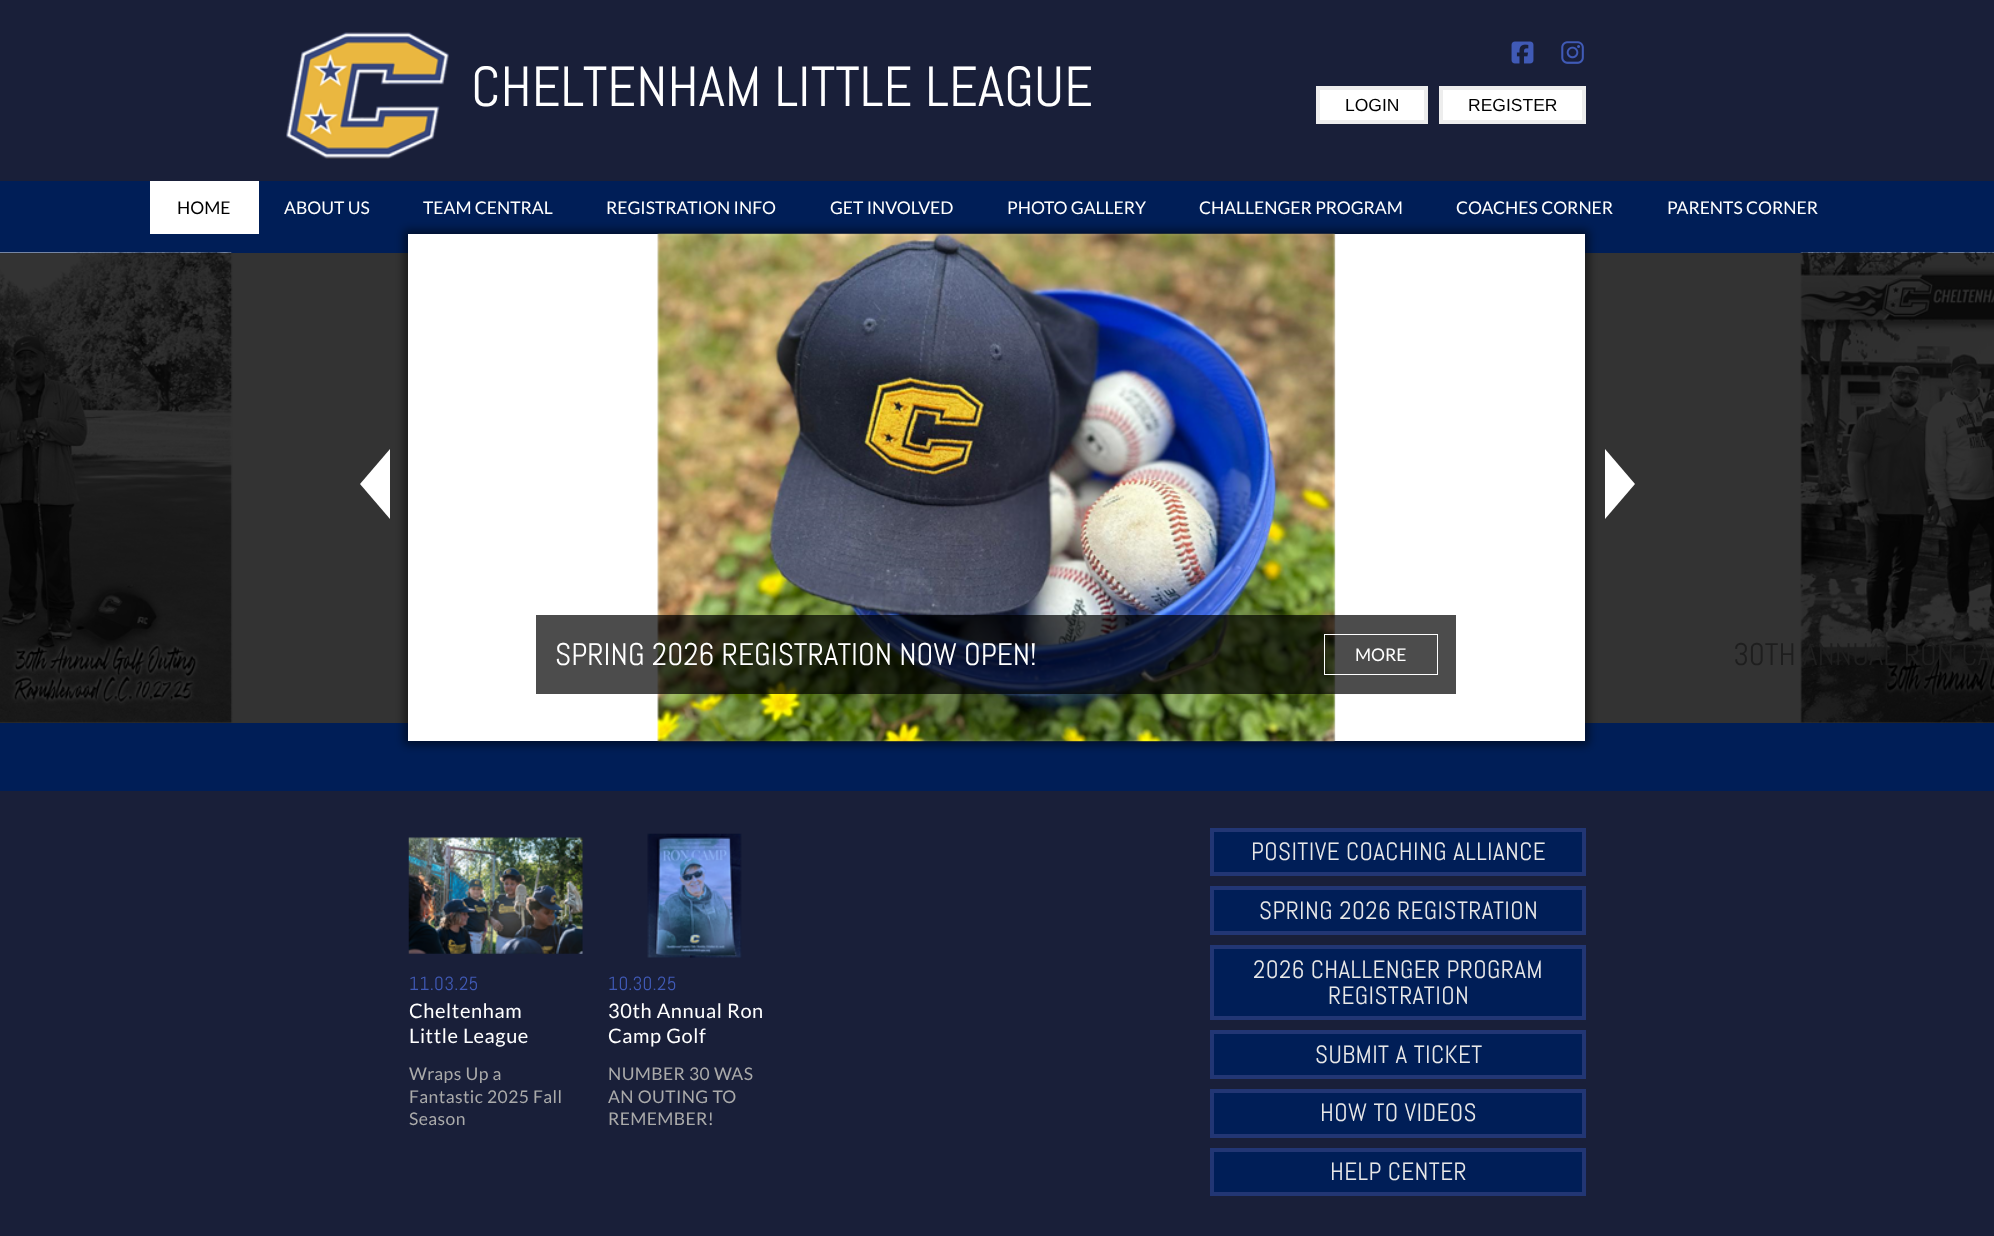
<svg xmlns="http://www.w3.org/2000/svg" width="1994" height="1236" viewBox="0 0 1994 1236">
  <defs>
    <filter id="blur1" x="-50%" y="-200%" width="200%" height="500%"><feGaussianBlur stdDeviation="5"/></filter>
  </defs>
  <rect width="100%" height="100%" fill="#191f39"/>
  <image x="286" y="32" width="163" height="127" href="img1.png"/>
  <text x="471" y="106" font-family="Abel" font-size="56.25" fill="#ffffff">CHELTENHAM LITTLE LEAGUE</text>
  <image x="1511" y="41" width="23" height="23" href="img2.png"/>
  <image x="1561" y="41" width="23" height="23" href="img3.png"/>
  <rect x="1318" y="88" width="108" height="34" fill="#ffffff" stroke="#ededed" stroke-width="4"/>
  <text x="1345" y="111" font-family="Liberation Sans" font-size="17.5" fill="#000000">LOGIN</text>
  <rect x="1441" y="88" width="143" height="34" fill="#ffffff" stroke="#ededed" stroke-width="4"/>
  <text x="1468" y="111" font-family="Liberation Sans" font-size="17.5" fill="#000000">REGISTER</text>
  <rect x="0" y="181" width="1994" height="610" fill="#001e57"/>
  <rect x="150" y="181" width="109" height="53" fill="#ffffff"/>
  <text x="177" y="214" font-family="Lato" font-size="17.5" fill="#000000">HOME</text>
  <text x="284" y="214" font-family="Lato" font-size="17.5" fill="#ffffff">ABOUT US</text>
  <rect x="0" y="253" width="408" height="470" fill="#333333"/>
  <rect x="1585" y="253" width="409" height="470" fill="#333333"/>
  <rect x="404" y="230" width="1185" height="515" fill="#000000" fill-opacity="0.5" filter="url(#blur1)"/>
  <text x="423" y="214" font-family="Lato" font-size="17.5" fill="#ffffff">TEAM CENTRAL</text>
  <text x="606" y="214" font-family="Lato" font-size="17.5" fill="#ffffff">REGISTRATION INFO</text>
  <text x="830" y="214" font-family="Lato" font-size="17.5" fill="#ffffff">GET INVOLVED</text>
  <text x="1007" y="214" font-family="Lato" font-size="17.5" fill="#ffffff">PHOTO GALLERY</text>
  <text x="1199" y="214" font-family="Lato" font-size="17.5" fill="#ffffff">CHALLENGER PROGRAM</text>
  <text x="1456" y="214" font-family="Lato" font-size="17.5" fill="#ffffff">COACHES CORNER</text>
  <text x="1667" y="214" font-family="Lato" font-size="17.5" fill="#ffffff">PARENTS CORNER</text>
  <path d="M390 449V519L360 484Z" fill="#ffffff"/>
  <path d="M1605 519V449L1635 484Z" fill="#ffffff"/>
  <image x="0" y="252" width="233" height="471" href="img4.png"/>
  <rect x="408" y="234" width="1177" height="507" fill="#ffffff"/>
  <image x="657" y="233" width="679" height="509" href="img5.png"/>
  <rect x="536" y="615" width="920" height="79" fill="#000000" fill-opacity="0.7"/>
  <text x="555" y="665" font-family="Abel" font-size="31.25" fill="#ffffff">SPRING 2026 REGISTRATION NOW OPEN!</text>
  <rect x="1324.5" y="634.5" width="113" height="40" fill="none" stroke="#ffffff"/>
  <text x="1355" y="661" font-family="Lato" font-size="17.5" fill="#ffffff">MORE</text>
  <image x="1800" y="252" width="194" height="471" href="img6.png"/>
  <text x="1733" y="665" font-family="Abel" font-size="31.25" fill="#1e1e1e">30TH ANNUAL RON CA</text>
  <image x="408" y="837" width="175" height="117" href="img7.png"/>
  <text x="409" y="990" font-family="Abel" font-size="19" letter-spacing="0.6" fill="#405ab6">11.03.25</text>
  <text x="409" y="1018" font-family="Lato" font-size="20" letter-spacing="0.6" fill="#ffffff">Cheltenham</text>
  <text x="409" y="1043" font-family="Lato" font-size="20" letter-spacing="0.6" fill="#ffffff">Little League</text>
  <text x="409" y="1080" font-family="Lato" font-size="17.5" letter-spacing="0.4" fill="#aaaaaa">Wraps Up a</text>
  <text x="409" y="1103" font-family="Lato" font-size="17.5" letter-spacing="0.4" fill="#aaaaaa">Fantastic 2025 Fall</text>
  <text x="409" y="1125" font-family="Lato" font-size="17.5" letter-spacing="0.4" fill="#aaaaaa">Season</text>
  <image x="647" y="833" width="95" height="125" href="img8.png"/>
  <text x="608" y="990" font-family="Abel" font-size="19" letter-spacing="0.6" fill="#405ab6">10.30.25</text>
  <text x="608" y="1018" font-family="Lato" font-size="20" letter-spacing="0.6" fill="#ffffff">30th Annual Ron</text>
  <text x="608" y="1043" font-family="Lato" font-size="20" letter-spacing="0.6" fill="#ffffff">Camp Golf</text>
  <text x="608" y="1080" font-family="Lato" font-size="17.5" letter-spacing="0.4" fill="#aaaaaa">NUMBER 30 WAS</text>
  <text x="608" y="1103" font-family="Lato" font-size="17.5" letter-spacing="0.4" fill="#aaaaaa">AN OUTING TO</text>
  <text x="608" y="1125" font-family="Lato" font-size="17.5" letter-spacing="0.4" fill="#aaaaaa">REMEMBER!</text>
  <rect x="1212" y="830" width="372" height="44" fill="#001e57" stroke="#223674" stroke-width="4"/>
  <text x="1251" y="860" font-family="Abel" font-size="25" letter-spacing="0.4" fill="#e8e8e8">POSITIVE COACHING ALLIANCE</text>
  <rect x="1212" y="888" width="372" height="45" fill="#001e57" stroke="#223674" stroke-width="4"/>
  <text x="1259" y="919" font-family="Abel" font-size="25" letter-spacing="0.4" fill="#e8e8e8">SPRING 2026 REGISTRATION</text>
  <rect x="1212" y="947" width="372" height="71" fill="#001e57" stroke="#223674" stroke-width="4"/>
  <text x="1253" y="978" font-family="Abel" font-size="25" letter-spacing="0.4" fill="#e8e8e8">2026 CHALLENGER PROGRAM</text>
  <text x="1328" y="1004" font-family="Abel" font-size="25" letter-spacing="0.4" fill="#e8e8e8">REGISTRATION</text>
  <rect x="1212" y="1032" width="372" height="45" fill="#001e57" stroke="#223674" stroke-width="4"/>
  <text x="1315" y="1063" font-family="Abel" font-size="25" letter-spacing="0.4" fill="#e8e8e8">SUBMIT A TICKET</text>
  <rect x="1212" y="1091" width="372" height="45" fill="#001e57" stroke="#223674" stroke-width="4"/>
  <text x="1320" y="1121" font-family="Abel" font-size="25" letter-spacing="0.4" fill="#e8e8e8">HOW TO VIDEOS</text>
  <rect x="1212" y="1150" width="372" height="44" fill="#001e57" stroke="#223674" stroke-width="4"/>
  <text x="1330" y="1180" font-family="Abel" font-size="25" letter-spacing="0.4" fill="#e8e8e8">HELP CENTER</text>
</svg>
